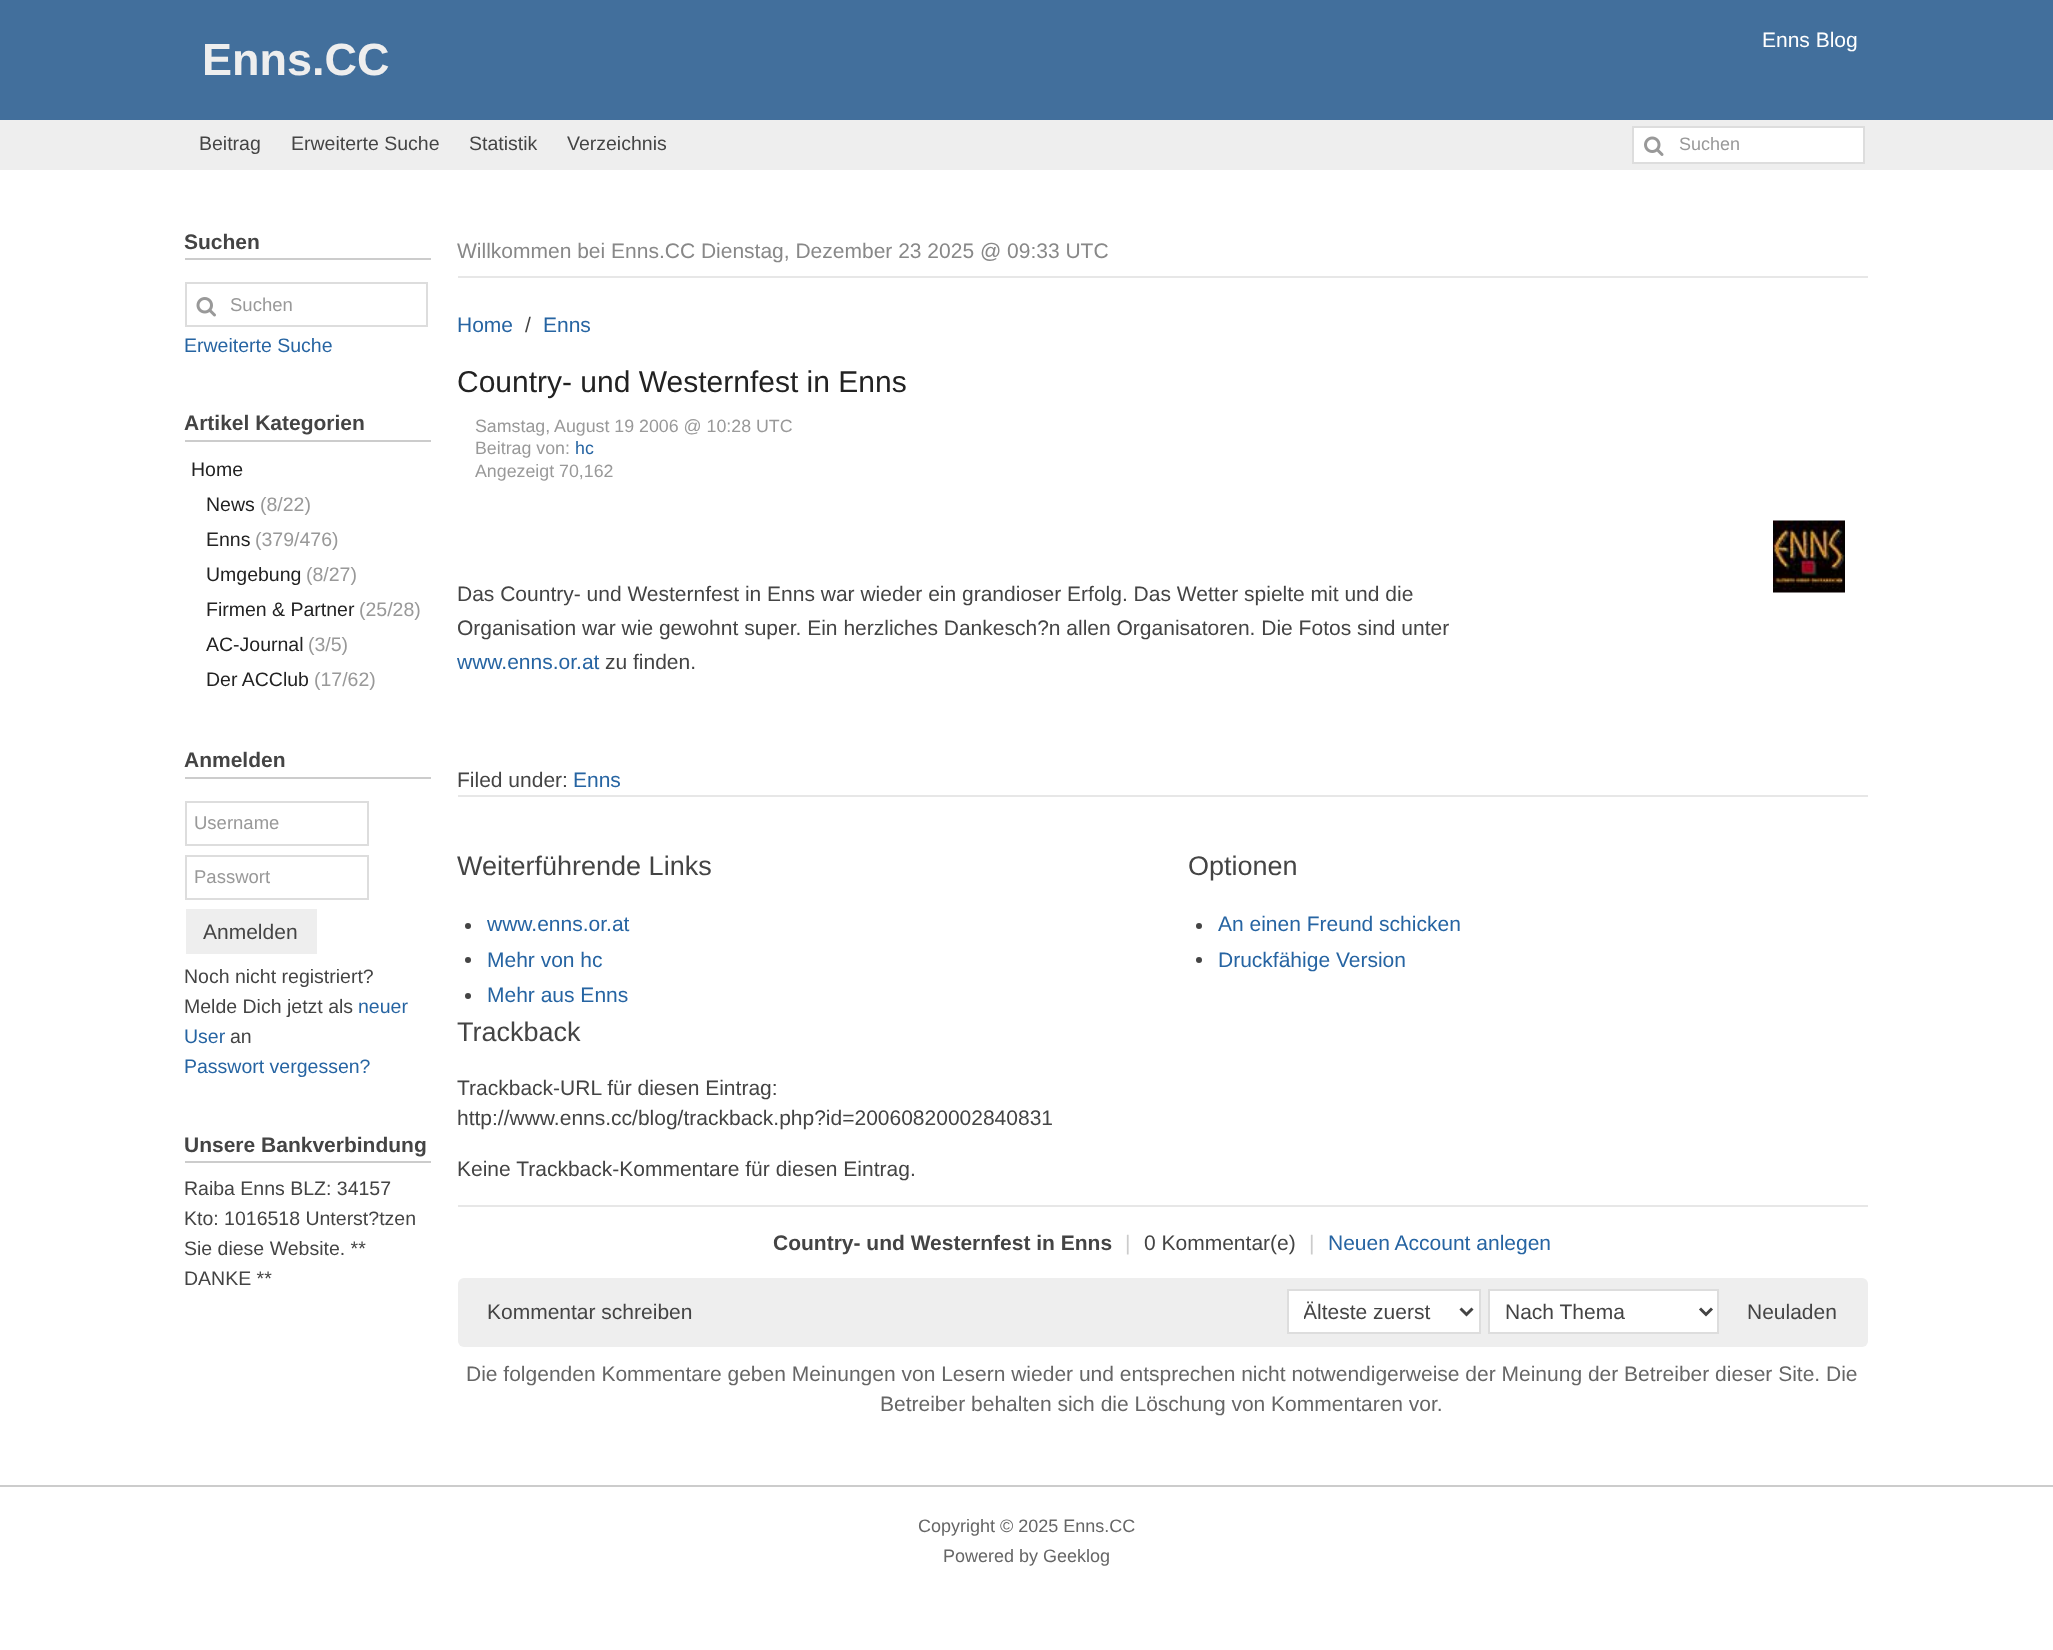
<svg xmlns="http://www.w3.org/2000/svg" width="2053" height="1650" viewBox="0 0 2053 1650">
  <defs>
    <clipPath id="clip1"><rect x="1304" y="1298" width="142" height="27"/></clipPath>
  </defs>
  <rect width="100%" height="100%" fill="#ffffff"/>
  <rect x="0" y="0" width="2053" height="120" fill="#426f9c"/>
  <text x="202" y="75" font-family="Liberation Sans" font-size="45" font-weight="bold" fill="#eeeeee">Enns.CC</text>
  <text x="1762" y="47" font-family="Liberation Sans" font-size="21" fill="#ffffff">Enns Blog</text>
  <rect x="0" y="120" width="2053" height="50" fill="#eeeeee"/>
  <text x="199" y="150" font-family="Liberation Sans" font-size="19.5" fill="#444444">Beitrag</text>
  <text x="291" y="150" font-family="Liberation Sans" font-size="19.5" fill="#444444">Erweiterte Suche</text>
  <text x="469" y="150" font-family="Liberation Sans" font-size="19.5" fill="#444444">Statistik</text>
  <text x="567" y="150" font-family="Liberation Sans" font-size="19.5" fill="#444444">Verzeichnis</text>
  <rect x="1633" y="127" width="231" height="36" fill="#ffffff" stroke="#dddddd" stroke-width="2"/>
  <image x="1644" y="136" width="20" height="20" href="img1.png"/>
  <text x="1679" y="150" font-family="Liberation Sans" font-size="18" fill="#999999">Suchen</text>
  <rect x="185" y="258" width="246" height="2" fill="#cccccc"/>
  <text x="184" y="249" font-family="Liberation Sans" font-size="21" font-weight="bold" fill="#444444">Suchen</text>
  <rect x="186" y="283" width="241" height="43" fill="none" stroke="#dddddd" stroke-width="2"/>
  <image x="196" y="297" width="20" height="20" href="img2.png"/>
  <text x="230" y="311" font-family="Liberation Sans" font-size="18.5" fill="#999999">Suchen</text>
  <text x="184" y="352" font-family="Liberation Sans" font-size="19.5" fill="#2664a2">Erweiterte Suche</text>
  <rect x="185" y="440" width="246" height="2" fill="#cccccc"/>
  <text x="184" y="430" font-family="Liberation Sans" font-size="21" font-weight="bold" fill="#444444">Artikel Kategorien</text>
  <text x="191" y="476" font-family="Liberation Sans" font-size="19.5" fill="#222222">Home</text>
  <text x="206" y="511" font-family="Liberation Sans" font-size="19.5" fill="#222222">News</text>
  <text x="260" y="511" font-family="Liberation Sans" font-size="19.5" fill="#999999">(8/22)</text>
  <text x="206" y="546" font-family="Liberation Sans" font-size="19.5" fill="#222222">Enns</text>
  <text x="255" y="546" font-family="Liberation Sans" font-size="19.5" fill="#999999">(379/476)</text>
  <text x="206" y="581" font-family="Liberation Sans" font-size="19.5" fill="#222222">Umgebung</text>
  <text x="306" y="581" font-family="Liberation Sans" font-size="19.5" fill="#999999">(8/27)</text>
  <text x="206" y="616" font-family="Liberation Sans" font-size="19.5" fill="#222222">Firmen &amp; Partner</text>
  <text x="359" y="616" font-family="Liberation Sans" font-size="19.5" fill="#999999">(25/28)</text>
  <text x="206" y="651" font-family="Liberation Sans" font-size="19.5" fill="#222222">AC-Journal</text>
  <text x="308" y="651" font-family="Liberation Sans" font-size="19.5" fill="#999999">(3/5)</text>
  <text x="206" y="686" font-family="Liberation Sans" font-size="19.5" fill="#222222">Der ACClub</text>
  <text x="314" y="686" font-family="Liberation Sans" font-size="19.5" fill="#999999">(17/62)</text>
  <rect x="185" y="777" width="246" height="2" fill="#cccccc"/>
  <text x="184" y="767" font-family="Liberation Sans" font-size="21" font-weight="bold" fill="#444444">Anmelden</text>
  <rect x="186" y="802" width="182" height="43" fill="none" stroke="#dddddd" stroke-width="2"/>
  <text x="194" y="829" font-family="Liberation Sans" font-size="18.5" fill="#999999">Username</text>
  <rect x="186" y="856" width="182" height="43" fill="none" stroke="#dddddd" stroke-width="2"/>
  <text x="194" y="883" font-family="Liberation Sans" font-size="18.5" fill="#999999">Passwort</text>
  <rect x="186" y="909" width="131" height="45" fill="#eeeeee"/>
  <text x="203" y="939" font-family="Liberation Sans" font-size="21" fill="#444444">Anmelden</text>
  <text x="184" y="983" font-family="Liberation Sans" font-size="19.5" fill="#444444">Noch nicht registriert?</text>
  <text x="184" y="1013" font-family="Liberation Sans" font-size="19.5" fill="#444444">Melde Dich jetzt als</text>
  <text x="358" y="1013" font-family="Liberation Sans" font-size="19.5" fill="#2664a2">neuer</text>
  <text x="184" y="1043" font-family="Liberation Sans" font-size="19.5" fill="#2664a2">User</text>
  <text x="230" y="1043" font-family="Liberation Sans" font-size="19.5" fill="#444444">an</text>
  <text x="184" y="1073" font-family="Liberation Sans" font-size="19.5" fill="#2664a2">Passwort vergessen?</text>
  <rect x="185" y="1161" width="246" height="2" fill="#cccccc"/>
  <text x="184" y="1152" font-family="Liberation Sans" font-size="21" font-weight="bold" fill="#444444">Unsere Bankverbindung</text>
  <text x="184" y="1195" font-family="Liberation Sans" font-size="19.5" fill="#444444">Raiba Enns BLZ: 34157</text>
  <text x="184" y="1225" font-family="Liberation Sans" font-size="19.5" fill="#444444">Kto: 1016518 Unterst?tzen</text>
  <text x="184" y="1255" font-family="Liberation Sans" font-size="19.5" fill="#444444">Sie diese Website. **</text>
  <text x="184" y="1285" font-family="Liberation Sans" font-size="19.5" fill="#444444">DANKE **</text>
  <rect x="458" y="276" width="1410" height="2" fill="#e7e7e7"/>
  <text x="457" y="258" font-family="Liberation Sans" font-size="21" fill="#888888">Willkommen bei Enns.CC Dienstag, Dezember 23 2025 @ 09:33 UTC</text>
  <text x="457" y="332" font-family="Liberation Sans" font-size="21" fill="#2664a2">Home</text>
  <text x="525" y="332" font-family="Liberation Sans" font-size="21" fill="#444444">/</text>
  <text x="543" y="332" font-family="Liberation Sans" font-size="21" fill="#2664a2">Enns</text>
  <rect x="458" y="795" width="1410" height="2" fill="#e7e7e7"/>
  <text x="457" y="392" font-family="Liberation Sans" font-size="30" fill="#222222">Country- und Westernfest in Enns</text>
  <text x="475" y="432" font-family="Liberation Sans" font-size="17.8" fill="#999999">Samstag, August 19 2006 @ 10:28 UTC</text>
  <text x="475" y="454" font-family="Liberation Sans" font-size="17.8" fill="#999999">Beitrag von:</text>
  <text x="575" y="454" font-family="Liberation Sans" font-size="17.8" fill="#2664a2">hc</text>
  <text x="475" y="477" font-family="Liberation Sans" font-size="17.8" fill="#999999">Angezeigt 70,162</text>
  <image x="1773" y="520" width="72" height="73" href="img3.png"/>
  <text x="457" y="601" font-family="Liberation Sans" font-size="21" fill="#444444">Das Country- und Westernfest in Enns war wieder ein grandioser Erfolg. Das Wetter spielte mit und die</text>
  <text x="457" y="635" font-family="Liberation Sans" font-size="21" fill="#444444">Organisation war wie gewohnt super. Ein herzliches Dankesch?n allen Organisatoren. Die Fotos sind unter</text>
  <text x="457" y="669" font-family="Liberation Sans" font-size="21" fill="#2664a2">www.enns.or.at</text>
  <text x="605" y="669" font-family="Liberation Sans" font-size="21" fill="#444444">zu finden.</text>
  <text x="457" y="787" font-family="Liberation Sans" font-size="21" fill="#444444">Filed under:</text>
  <text x="573" y="787" font-family="Liberation Sans" font-size="21" fill="#2664a2">Enns</text>
  <text x="457" y="875" font-family="Liberation Sans" font-size="27" fill="#444444">Weiterführende Links</text>
  <circle cx="468" cy="926" r="3" fill="#444444"/>
  <text x="487" y="931" font-family="Liberation Sans" font-size="21" fill="#2664a2">www.enns.or.at</text>
  <circle cx="468" cy="960" r="3" fill="#444444"/>
  <text x="487" y="967" font-family="Liberation Sans" font-size="21" fill="#2664a2">Mehr von hc</text>
  <circle cx="468" cy="996" r="3" fill="#444444"/>
  <text x="487" y="1002" font-family="Liberation Sans" font-size="21" fill="#2664a2">Mehr aus Enns</text>
  <text x="1188" y="875" font-family="Liberation Sans" font-size="27" fill="#444444">Optionen</text>
  <circle cx="1199" cy="926" r="3" fill="#444444"/>
  <text x="1218" y="931" font-family="Liberation Sans" font-size="21" fill="#2664a2">An einen Freund schicken</text>
  <circle cx="1199" cy="960" r="3" fill="#444444"/>
  <text x="1218" y="967" font-family="Liberation Sans" font-size="21" fill="#2664a2">Druckfähige Version</text>
  <text x="457" y="1041" font-family="Liberation Sans" font-size="27" fill="#444444">Trackback</text>
  <rect x="458" y="1205" width="1410" height="2" fill="#e7e7e7"/>
  <text x="457" y="1095" font-family="Liberation Sans" font-size="21" fill="#444444">Trackback-URL für diesen Eintrag:</text>
  <text x="457" y="1125" font-family="Liberation Sans" font-size="21" fill="#444444">http://www.enns.cc/blog/trackback.php?id=20060820002840831</text>
  <text x="457" y="1176" font-family="Liberation Sans" font-size="21" fill="#444444">Keine Trackback-Kommentare für diesen Eintrag.</text>
  <text x="773" y="1250" font-family="Liberation Sans" font-size="21" font-weight="bold" fill="#444444">Country- und Westernfest in Enns</text>
  <text x="1125" y="1250" font-family="Liberation Sans" font-size="21" fill="#cccccc">|</text>
  <text x="1144" y="1250" font-family="Liberation Sans" font-size="21" fill="#444444">0 Kommentar(e)</text>
  <text x="1309" y="1250" font-family="Liberation Sans" font-size="21" fill="#cccccc">|</text>
  <text x="1328" y="1250" font-family="Liberation Sans" font-size="21" fill="#2664a2">Neuen Account anlegen</text>
  <rect x="458" y="1278" width="1410" height="69" rx="6" fill="#eeeeee"/>
  <text x="487" y="1319" font-family="Liberation Sans" font-size="21" fill="#444444">Kommentar schreiben</text>
  <rect x="1288" y="1290" width="192" height="43" fill="#ffffff" stroke="#dddddd" stroke-width="2"/>
  <path d="M1460.5 1308.5L1466.5 1314.5L1472.5 1308.5" fill="none" stroke="#444444" stroke-width="3"/>
  <g clip-path="url(#clip1)">
    <text x="1303" y="1319" font-family="Liberation Sans" font-size="21" fill="#444444">Älteste zuerst</text>
  </g>
  <rect x="1489" y="1290" width="229" height="43" fill="#ffffff" stroke="#dddddd" stroke-width="2"/>
  <path d="M1700 1308.5L1706 1314.5L1712 1308.5" fill="none" stroke="#444444" stroke-width="3"/>
  <text x="1505" y="1319" font-family="Liberation Sans" font-size="21" fill="#444444">Nach Thema</text>
  <text x="1747" y="1319" font-family="Liberation Sans" font-size="21" fill="#444444">Neuladen</text>
  <text x="466" y="1381" font-family="Liberation Sans" font-size="21" fill="#666666">Die folgenden Kommentare geben Meinungen von Lesern wieder und entsprechen nicht notwendigerweise der Meinung der Betreiber dieser Site. Die</text>
  <text x="880" y="1411" font-family="Liberation Sans" font-size="21" fill="#666666">Betreiber behalten sich die Löschung von Kommentaren vor.</text>
  <rect x="0" y="1485" width="2053" height="2" fill="#cccccc"/>
  <text x="918" y="1532" font-family="Liberation Sans" font-size="18" fill="#666666">Copyright © 2025 Enns.CC</text>
  <text x="943" y="1562" font-family="Liberation Sans" font-size="18" fill="#666666">Powered by Geeklog</text>
</svg>
